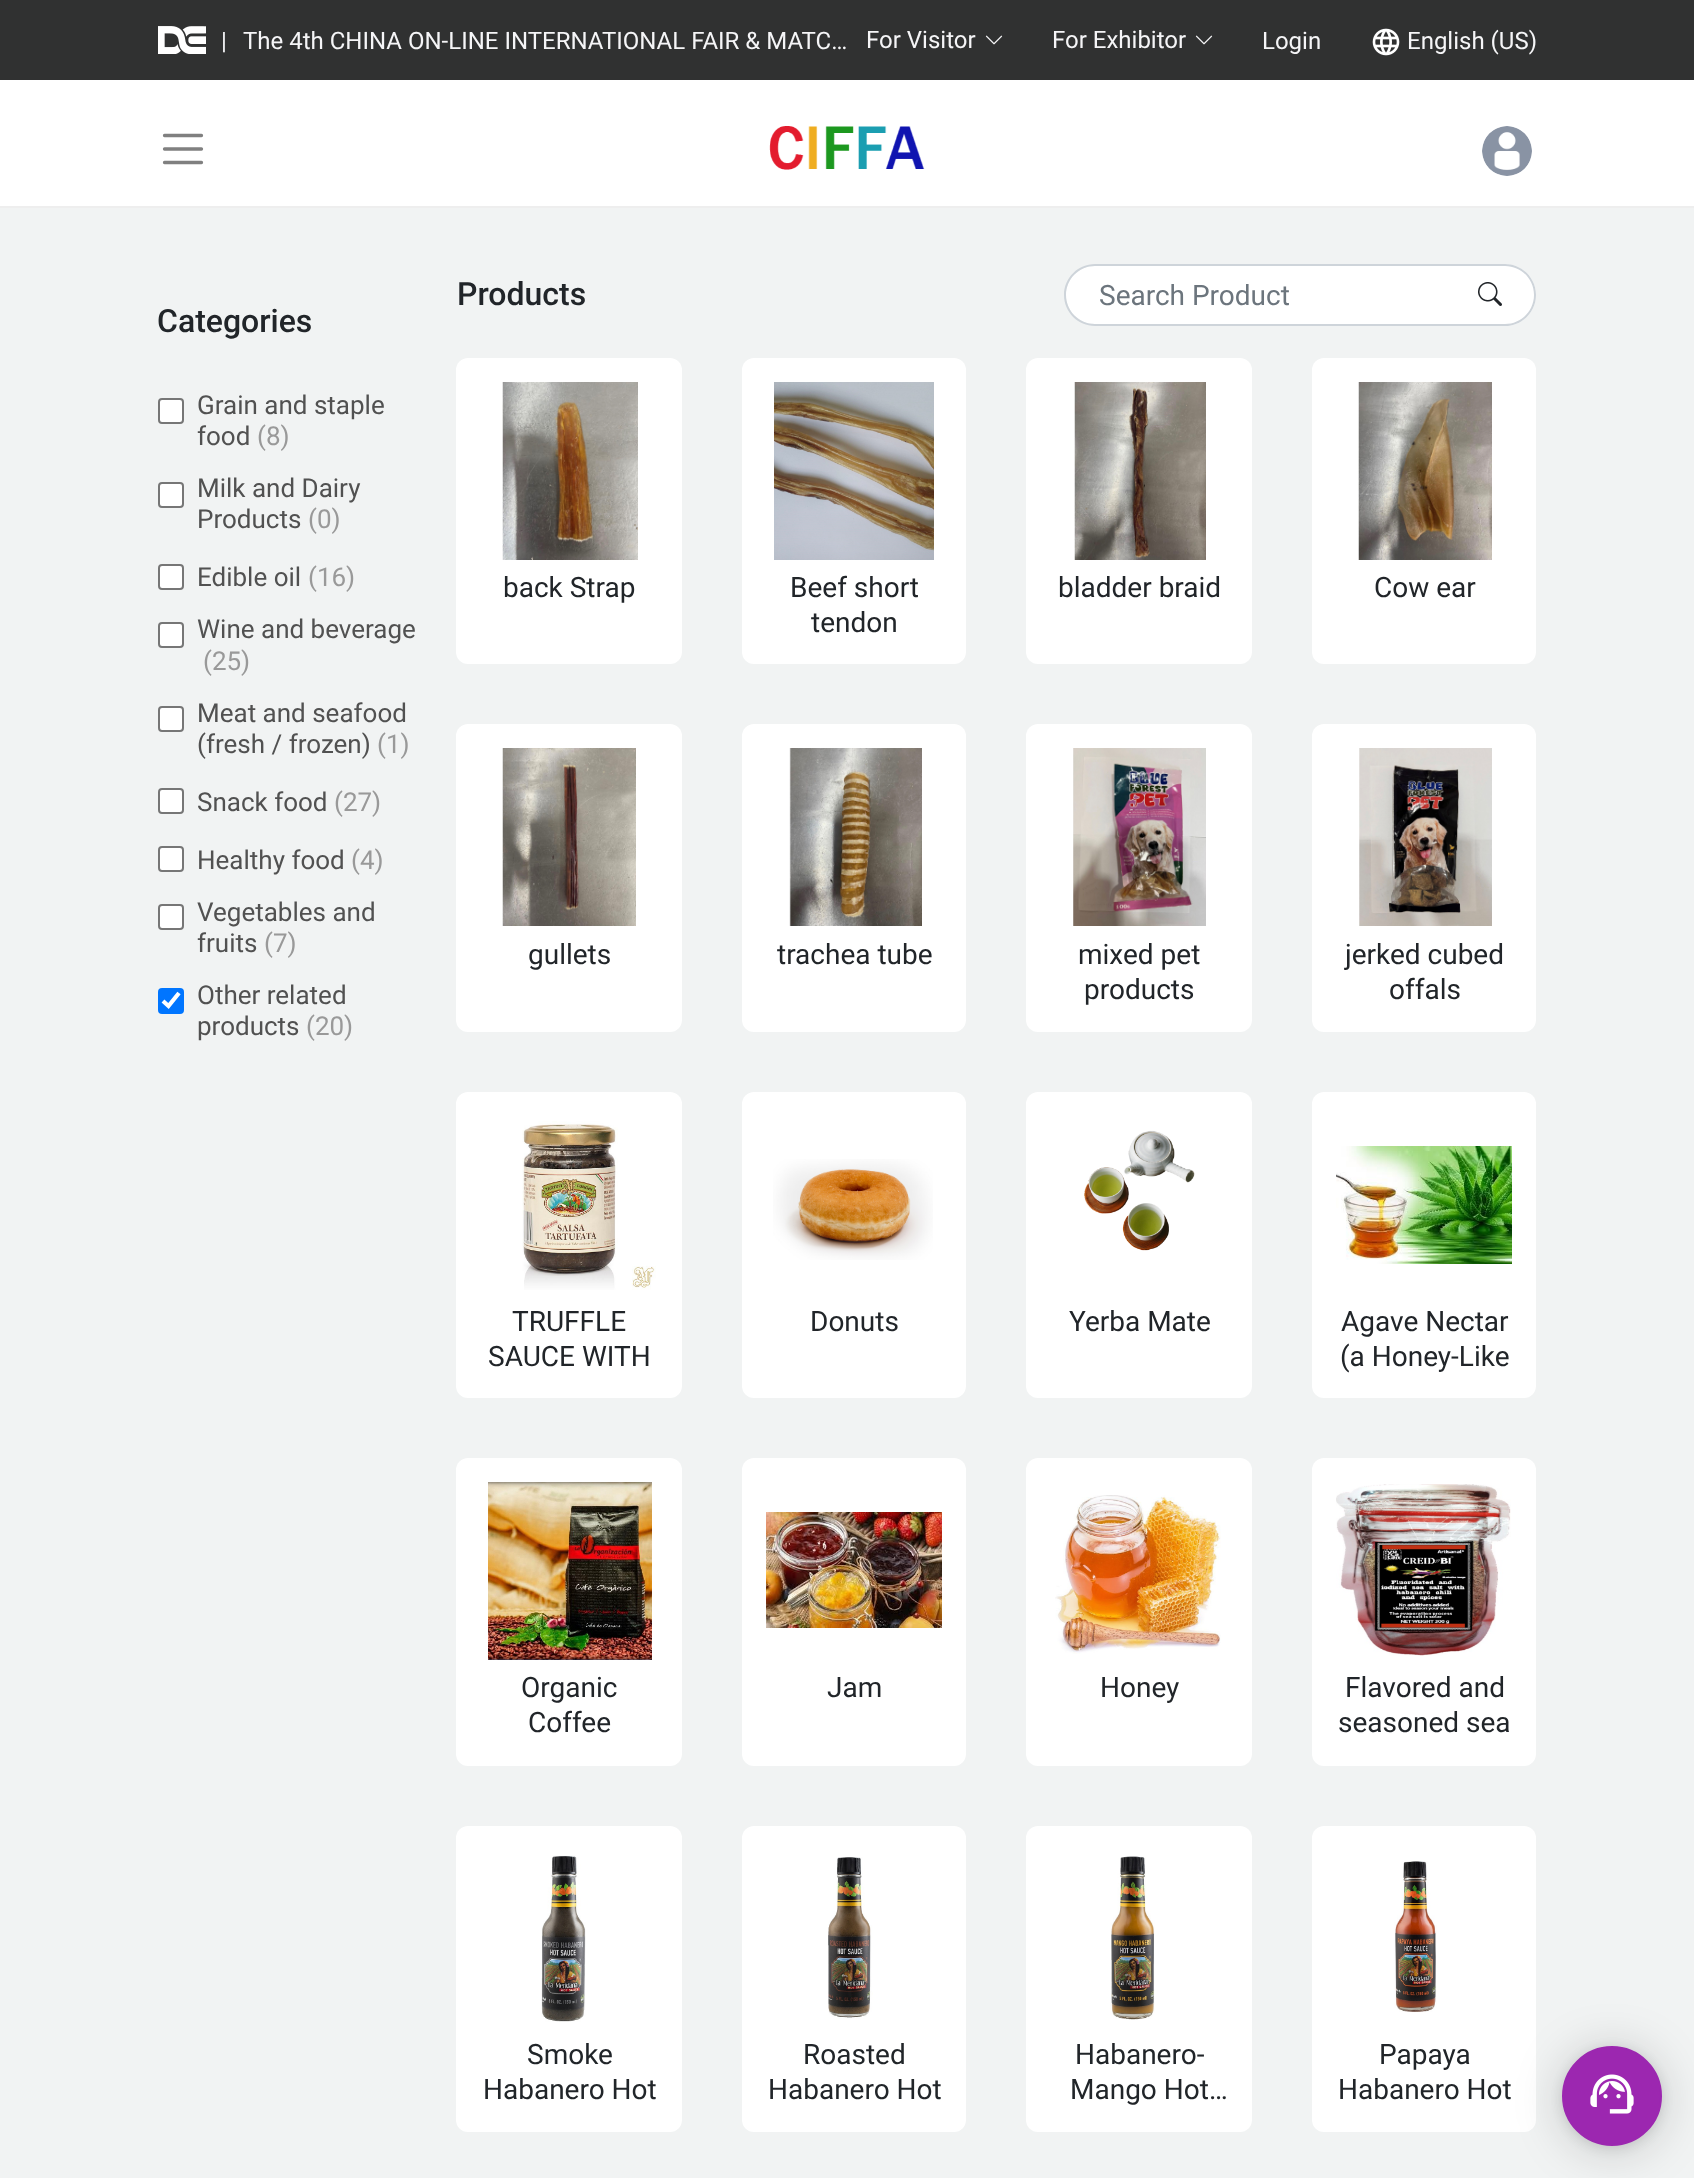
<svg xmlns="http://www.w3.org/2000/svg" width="1694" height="2178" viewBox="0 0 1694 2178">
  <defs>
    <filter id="blur1" x="-50%" y="-200%" width="200%" height="500%"><feGaussianBlur stdDeviation="24"/></filter>
    <filter id="blur2" x="-50%" y="-200%" width="200%" height="500%"><feGaussianBlur stdDeviation="6"/></filter>
  </defs>
  <rect width="100%" height="100%" fill="#f1f3f3"/>
  <rect x="0" y="0" width="1694" height="80" fill="#303131"/>
  <image x="158" y="26" width="48" height="28" href="img1.png"/>
  <text x="221" y="49" font-family="Roboto" font-size="24" fill="#f5f5f7">|</text>
  <text x="243" y="49" font-family="Roboto" font-size="24" fill="#f5f5f7">The 4th CHINA ON-LINE INTERNATIONAL FAIR &amp; MATC…</text>
  <text x="866" y="48" font-family="Roboto" font-size="24" fill="#f5f5f7">For Visitor</text>
  <image x="985" y="35" width="18" height="10" href="img2.png"/>
  <text x="1052" y="48" font-family="Roboto" font-size="24" fill="#f5f5f7">For Exhibitor</text>
  <image x="1195" y="35" width="18" height="10" href="img2.png"/>
  <text x="1262" y="49" font-family="Roboto" font-size="24" fill="#f5f5f7">Login</text>
  <image x="1372" y="28" width="28" height="28" href="img3.png"/>
  <text x="1407" y="49" font-family="Roboto" font-size="24" fill="#f5f5f7">English (US)</text>
  <rect x="0" y="80" width="1694" height="126" fill="#ffffff"/>
  <rect x="0" y="206" width="1694" height="2" fill="#eeeeee"/>
  <path d="M164.5 135.5H201.5M164.5 149H201.5M164.5 162.5H201.5" fill="none" stroke="#808080" stroke-width="3.3" stroke-linecap="round"/>
  <image x="769" y="126" width="156" height="44" href="img4.png"/>
  <image x="1482" y="126" width="50" height="50" href="img5.png"/>
  <text x="157" y="332" font-family="Roboto" font-size="32" font-weight="500" fill="#212529">Categories</text>
  <rect x="159" y="399" width="24" height="24" rx="3" fill="#ffffff" stroke="#767676" stroke-width="2"/>
  <text x="197" y="414" font-family="Roboto" font-size="26" fill="#515151">Grain and staple</text>
  <text x="197" y="445" font-family="Roboto" font-size="26" fill="#515151">food</text>
  <text x="257" y="445" font-family="Roboto" font-size="26" fill="#999999">(8)</text>
  <rect x="159" y="483" width="24" height="24" rx="3" fill="#ffffff" stroke="#767676" stroke-width="2"/>
  <text x="197" y="497" font-family="Roboto" font-size="26" fill="#515151">Milk and Dairy</text>
  <text x="197" y="528" font-family="Roboto" font-size="26" fill="#515151">Products</text>
  <text x="308" y="528" font-family="Roboto" font-size="26" fill="#999999">(0)</text>
  <rect x="159" y="565" width="24" height="24" rx="3" fill="#ffffff" stroke="#767676" stroke-width="2"/>
  <text x="197" y="586" font-family="Roboto" font-size="26" fill="#515151">Edible oil</text>
  <text x="308" y="586" font-family="Roboto" font-size="26" fill="#999999">(16)</text>
  <rect x="159" y="623" width="24" height="24" rx="3" fill="#ffffff" stroke="#767676" stroke-width="2"/>
  <text x="197" y="638" font-family="Roboto" font-size="26" fill="#515151">Wine and beverage</text>
  <text x="203" y="670" font-family="Roboto" font-size="26" fill="#999999">(25)</text>
  <rect x="159" y="707" width="24" height="24" rx="3" fill="#ffffff" stroke="#767676" stroke-width="2"/>
  <text x="197" y="722" font-family="Roboto" font-size="26" fill="#515151">Meat and seafood</text>
  <text x="197" y="753" font-family="Roboto" font-size="26" fill="#515151">(fresh / frozen)</text>
  <text x="377" y="753" font-family="Roboto" font-size="26" fill="#999999">(1)</text>
  <rect x="159" y="789" width="24" height="24" rx="3" fill="#ffffff" stroke="#767676" stroke-width="2"/>
  <text x="197" y="811" font-family="Roboto" font-size="26" fill="#515151">Snack food</text>
  <text x="334" y="811" font-family="Roboto" font-size="26" fill="#999999">(27)</text>
  <rect x="159" y="847" width="24" height="24" rx="3" fill="#ffffff" stroke="#767676" stroke-width="2"/>
  <text x="197" y="869" font-family="Roboto" font-size="26" fill="#515151">Healthy food</text>
  <text x="351" y="869" font-family="Roboto" font-size="26" fill="#999999">(4)</text>
  <rect x="159" y="905" width="24" height="24" rx="3" fill="#ffffff" stroke="#767676" stroke-width="2"/>
  <text x="197" y="921" font-family="Roboto" font-size="26" fill="#515151">Vegetables and</text>
  <text x="197" y="952" font-family="Roboto" font-size="26" fill="#515151">fruits</text>
  <text x="264" y="952" font-family="Roboto" font-size="26" fill="#999999">(7)</text>
  <rect x="158" y="988" width="26" height="26" rx="4" fill="#0075ff"/>
  <path d="M163 1001L168.5 1006L179 993" fill="none" stroke="#ffffff" stroke-width="4.2"/>
  <text x="197" y="1004" font-family="Roboto" font-size="26" fill="#515151">Other related</text>
  <text x="197" y="1035" font-family="Roboto" font-size="26" fill="#515151">products</text>
  <text x="306" y="1035" font-family="Roboto" font-size="26" fill="#999999">(20)</text>
  <text x="457" y="305" font-family="Roboto" font-size="32" font-weight="500" fill="#212529">Products</text>
  <path d="M1095 266H1464V324H1095C1079 324 1066 311 1066 295C1066 279 1079 266 1095 266Z" fill="#ffffff"/>
  <path d="M1095 264H1464V326H1095C1078 326 1064 312 1064 295C1064 278 1078 264 1095 264ZM1095 266H1464V324H1095C1079 324 1066 311 1066 295C1066 279 1079 266 1095 266Z" fill="#ced4da" fill-rule="evenodd"/>
  <text x="1099" y="305" font-family="Roboto" font-size="28" fill="#6c757d">Search Product</text>
  <path d="M1462 264H1505C1522 264 1536 278 1536 295C1536 312 1522 326 1505 326H1462Z" fill="#ffffff"/>
  <path d="M1462 264H1505C1522 264 1536 278 1536 295C1536 312 1522 326 1505 326H1462ZM1462 266H1505C1521 266 1534 279 1534 295C1534 311 1521 324 1505 324H1462Z" fill="#ced4da" fill-rule="evenodd"/>
  <image x="1478" y="282" width="24" height="24" href="img6.png"/>
  <rect x="456" y="358" width="226" height="306" rx="12" fill="#ffffff"/>
  <image x="502" y="382" width="136" height="178" href="img7.png"/>
  <text x="503" y="597" font-family="Roboto" font-size="28" fill="#212529">back Strap</text>
  <rect x="742" y="358" width="224" height="306" rx="12" fill="#ffffff"/>
  <image x="774" y="382" width="160" height="178" href="img8.png"/>
  <text x="790" y="597" font-family="Roboto" font-size="28" fill="#212529">Beef short</text>
  <text x="811" y="632" font-family="Roboto" font-size="28" fill="#212529">tendon</text>
  <rect x="1026" y="358" width="226" height="306" rx="12" fill="#ffffff"/>
  <image x="1074" y="382" width="132" height="178" href="img9.png"/>
  <text x="1058" y="597" font-family="Roboto" font-size="28" fill="#212529">bladder braid</text>
  <rect x="1312" y="358" width="224" height="306" rx="12" fill="#ffffff"/>
  <image x="1358" y="382" width="134" height="178" href="img10.png"/>
  <text x="1374" y="597" font-family="Roboto" font-size="28" fill="#212529">Cow ear</text>
  <rect x="456" y="724" width="226" height="308" rx="12" fill="#ffffff"/>
  <image x="502" y="748" width="134" height="178" href="img11.png"/>
  <text x="528" y="964" font-family="Roboto" font-size="28" fill="#212529">gullets</text>
  <rect x="742" y="724" width="224" height="308" rx="12" fill="#ffffff"/>
  <image x="789" y="748" width="133" height="178" href="img12.png"/>
  <text x="777" y="964" font-family="Roboto" font-size="28" fill="#212529">trachea tube</text>
  <rect x="1026" y="724" width="226" height="308" rx="12" fill="#ffffff"/>
  <image x="1073" y="748" width="133" height="178" href="img13.png"/>
  <text x="1078" y="964" font-family="Roboto" font-size="28" fill="#212529">mixed pet</text>
  <text x="1084" y="999" font-family="Roboto" font-size="28" fill="#212529">products</text>
  <rect x="1312" y="724" width="224" height="308" rx="12" fill="#ffffff"/>
  <image x="1359" y="748" width="133" height="178" href="img14.png"/>
  <text x="1345" y="964" font-family="Roboto" font-size="28" fill="#212529">jerked cubed</text>
  <text x="1389" y="999" font-family="Roboto" font-size="28" fill="#212529">offals</text>
  <rect x="456" y="1092" width="226" height="306" rx="12" fill="#ffffff"/>
  <image x="522" y="1121" width="134" height="169" href="img15.png"/>
  <text x="512" y="1331" font-family="Roboto" font-size="28" fill="#212529">TRUFFLE</text>
  <text x="488" y="1366" font-family="Roboto" font-size="28" fill="#212529">SAUCE WITH</text>
  <rect x="742" y="1092" width="224" height="306" rx="12" fill="#ffffff"/>
  <image x="773" y="1159" width="160" height="101" href="img16.png"/>
  <text x="810" y="1331" font-family="Roboto" font-size="28" fill="#212529">Donuts</text>
  <rect x="1026" y="1092" width="226" height="306" rx="12" fill="#ffffff"/>
  <image x="1084" y="1130" width="111" height="121" href="img17.png"/>
  <text x="1069" y="1331" font-family="Roboto" font-size="28" fill="#212529">Yerba Mate</text>
  <rect x="1312" y="1092" width="224" height="306" rx="12" fill="#ffffff"/>
  <image x="1336" y="1146" width="176" height="118" href="img18.png"/>
  <text x="1341" y="1331" font-family="Roboto" font-size="28" fill="#212529">Agave Nectar</text>
  <text x="1340" y="1366" font-family="Roboto" font-size="28" fill="#212529">(a Honey-Like</text>
  <rect x="456" y="1458" width="226" height="308" rx="12" fill="#ffffff"/>
  <image x="488" y="1482" width="164" height="178" href="img19.png"/>
  <text x="521" y="1697" font-family="Roboto" font-size="28" fill="#212529">Organic</text>
  <text x="528" y="1732" font-family="Roboto" font-size="28" fill="#212529">Coffee</text>
  <rect x="742" y="1458" width="224" height="308" rx="12" fill="#ffffff"/>
  <image x="766" y="1512" width="176" height="116" href="img20.png"/>
  <text x="827" y="1697" font-family="Roboto" font-size="28" fill="#212529">Jam</text>
  <rect x="1026" y="1458" width="226" height="308" rx="12" fill="#ffffff"/>
  <image x="1055" y="1495" width="166" height="159" href="img21.png"/>
  <text x="1100" y="1697" font-family="Roboto" font-size="28" fill="#212529">Honey</text>
  <rect x="1312" y="1458" width="224" height="308" rx="12" fill="#ffffff"/>
  <image x="1336" y="1484" width="175" height="172" href="img22.png"/>
  <text x="1345" y="1697" font-family="Roboto" font-size="28" fill="#212529">Flavored and</text>
  <text x="1338" y="1732" font-family="Roboto" font-size="28" fill="#212529">seasoned sea</text>
  <rect x="456" y="1826" width="226" height="306" rx="12" fill="#ffffff"/>
  <image x="541" y="1855" width="45" height="167" href="img23.png"/>
  <text x="527" y="2064" font-family="Roboto" font-size="28" fill="#212529">Smoke</text>
  <text x="483" y="2099" font-family="Roboto" font-size="28" fill="#212529">Habanero Hot</text>
  <rect x="742" y="1826" width="224" height="306" rx="12" fill="#ffffff"/>
  <image x="828" y="1857" width="45" height="162" href="img24.png"/>
  <text x="803" y="2064" font-family="Roboto" font-size="28" fill="#212529">Roasted</text>
  <text x="768" y="2099" font-family="Roboto" font-size="28" fill="#212529">Habanero Hot</text>
  <rect x="1026" y="1826" width="226" height="306" rx="12" fill="#ffffff"/>
  <image x="1110" y="1856" width="45" height="164" href="img25.png"/>
  <text x="1075" y="2064" font-family="Roboto" font-size="28" fill="#212529">Habanero-</text>
  <text x="1070" y="2099" font-family="Roboto" font-size="28" fill="#212529">Mango Hot…</text>
  <rect x="1312" y="1826" width="224" height="306" rx="12" fill="#ffffff"/>
  <image x="1394" y="1861" width="43" height="151" href="img26.png"/>
  <text x="1379" y="2064" font-family="Roboto" font-size="28" fill="#212529">Papaya</text>
  <text x="1338" y="2099" font-family="Roboto" font-size="28" fill="#212529">Habanero Hot</text>
  <rect x="1562" y="2050" width="100" height="100" rx="50" fill="#000000" fill-opacity="0.2" filter="url(#blur1)"/>
  <rect x="1562" y="2048" width="100" height="100" rx="50" fill="#000000" fill-opacity="0.1" filter="url(#blur2)"/>
  <circle cx="1612" cy="2096" r="49" fill="#9c27b0" stroke="#9c27b0" stroke-width="2"/>
  <image x="1590" y="2074" width="44" height="40" href="img27.png"/>
</svg>
